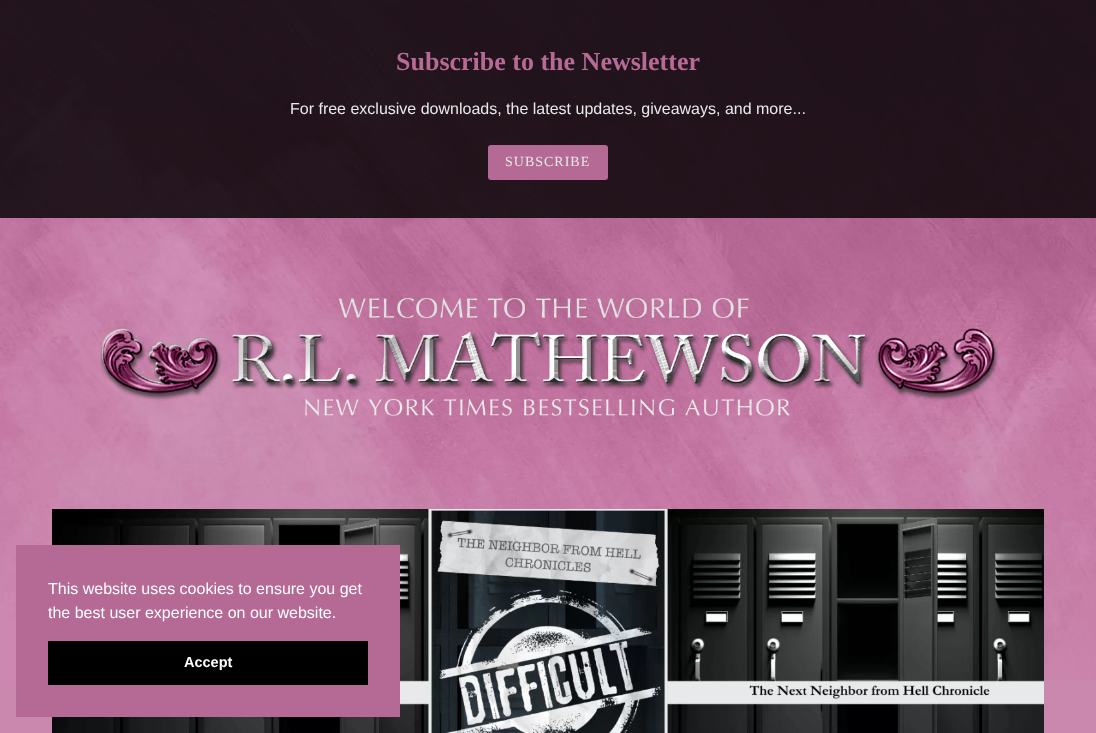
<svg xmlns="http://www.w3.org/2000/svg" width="1096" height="733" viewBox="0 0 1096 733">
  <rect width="100%" height="100%" fill="#ca88ae"/>
  <image x="0" y="0" width="1096" height="680" href="img1.png"/>
  <rect x="0" y="0" width="1096" height="218" fill="#000000" fill-opacity="0.81"/>
  <text x="396" y="70" font-family="Liberation Serif" font-size="26" font-weight="bold" fill="#b66a95">Subscribe to the Newsletter</text>
  <text x="290" y="114" font-family="Liberation Sans" font-size="16" fill="#e8e8e8">For free exclusive downloads, the latest updates, giveaways, and more...</text>
  <rect x="488" y="145" width="120" height="35" rx="3" fill="#b56995"/>
  <text x="505" y="166" font-family="Liberation Serif" font-size="14" letter-spacing="1" fill="#e8e8e8">SUBSCRIBE</text>
  <image x="100" y="298" width="899" height="118" href="img2.png"/>
  <image x="52" y="509" width="992" height="224" href="img3.png"/>
  <rect x="16" y="545" width="384" height="172" fill="#b56995"/>
  <text x="48" y="594" font-family="Liberation Sans" font-size="16" fill="#ffffff">This website uses cookies to ensure you get</text>
  <text x="48" y="618" font-family="Liberation Sans" font-size="16" fill="#ffffff">the best user experience on our website.</text>
  <rect x="48" y="641" width="320" height="44" fill="#000000"/>
  <text x="184" y="667" font-family="Liberation Sans" font-size="14.5" font-weight="bold" fill="#ffffff">Accept</text>
</svg>
